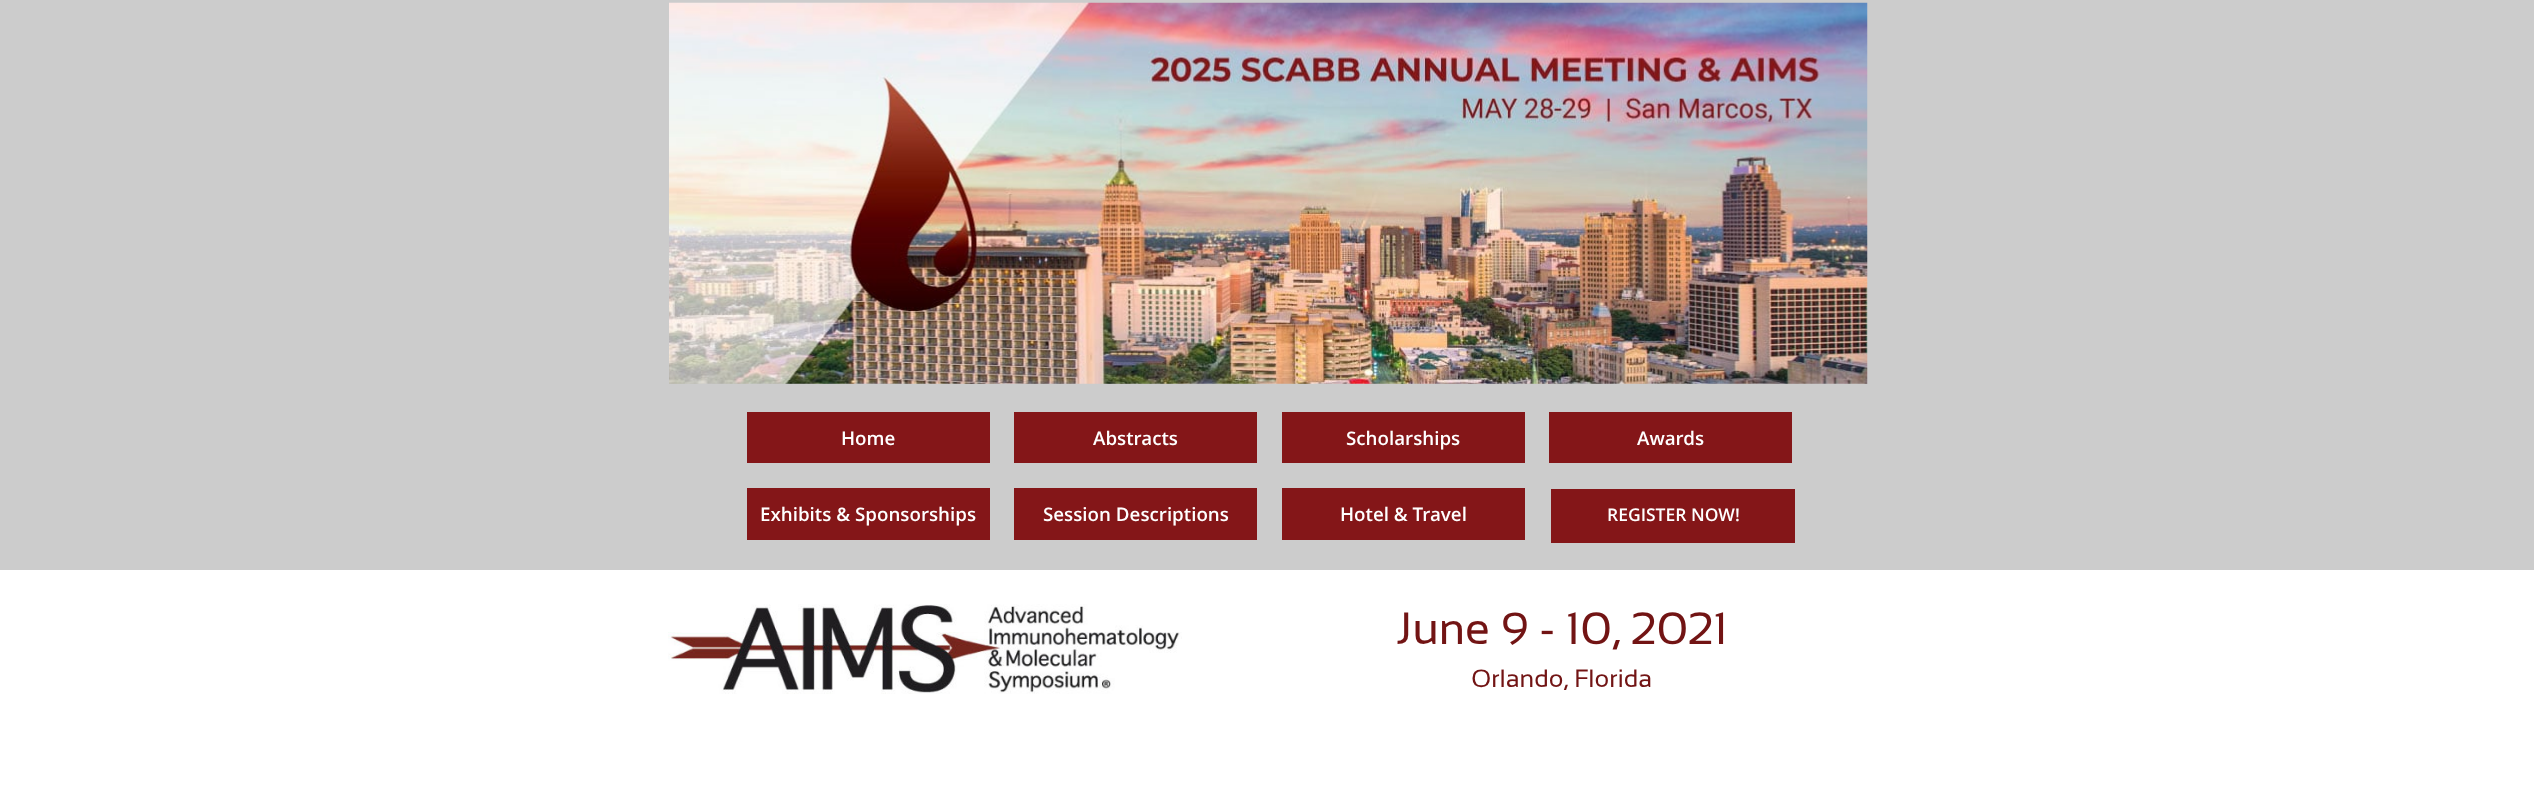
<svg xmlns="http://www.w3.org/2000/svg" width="2534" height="793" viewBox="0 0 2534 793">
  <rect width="100%" height="100%" fill="#ffffff"/>
  <rect x="0" y="0" width="2534" height="570" fill="#cccccc"/>
  <image x="669" y="2" width="1199" height="382" href="img1.png"/>
  <rect x="747" y="412" width="243" height="51" fill="#841618"/>
  <text x="841" y="445" font-family="Open Sans" font-size="18.75" font-weight="600" fill="#ffffff">Home</text>
  <rect x="1014" y="412" width="243" height="51" fill="#841618"/>
  <text x="1093" y="445" font-family="Open Sans" font-size="18.75" font-weight="600" fill="#ffffff">Abstracts</text>
  <rect x="1282" y="412" width="243" height="51" fill="#841618"/>
  <text x="1346" y="445" font-family="Open Sans" font-size="18.75" font-weight="600" fill="#ffffff">Scholarships</text>
  <rect x="1549" y="412" width="243" height="51" fill="#841618"/>
  <text x="1637" y="445" font-family="Open Sans" font-size="18.75" font-weight="600" fill="#ffffff">Awards</text>
  <rect x="747" y="488" width="243" height="52" fill="#841618"/>
  <text x="760" y="521" font-family="Open Sans" font-size="18.75" font-weight="600" fill="#ffffff">Exhibits &amp; Sponsorships</text>
  <rect x="1014" y="488" width="243" height="52" fill="#841618"/>
  <text x="1043" y="521" font-family="Open Sans" font-size="18.75" font-weight="600" fill="#ffffff">Session Descriptions</text>
  <rect x="1282" y="488" width="243" height="52" fill="#841618"/>
  <text x="1340" y="521" font-family="Open Sans" font-size="18.75" font-weight="600" fill="#ffffff">Hotel &amp; Travel</text>
  <rect x="1551" y="489" width="244" height="54" fill="#841618"/>
  <text x="1607" y="521" font-family="Open Sans" font-size="17.5" font-weight="600" fill="#ffffff">REGISTER NOW!</text>
  <image x="668" y="604" width="514" height="90" href="img2.png"/>
  <text x="1397" y="644" font-family="Sansation" font-size="45" fill="#721414">June 9 - 10, 2021</text>
  <text x="1471" y="687" font-family="Sansation" font-size="25" fill="#721414">Orlando, Florida</text>
</svg>
